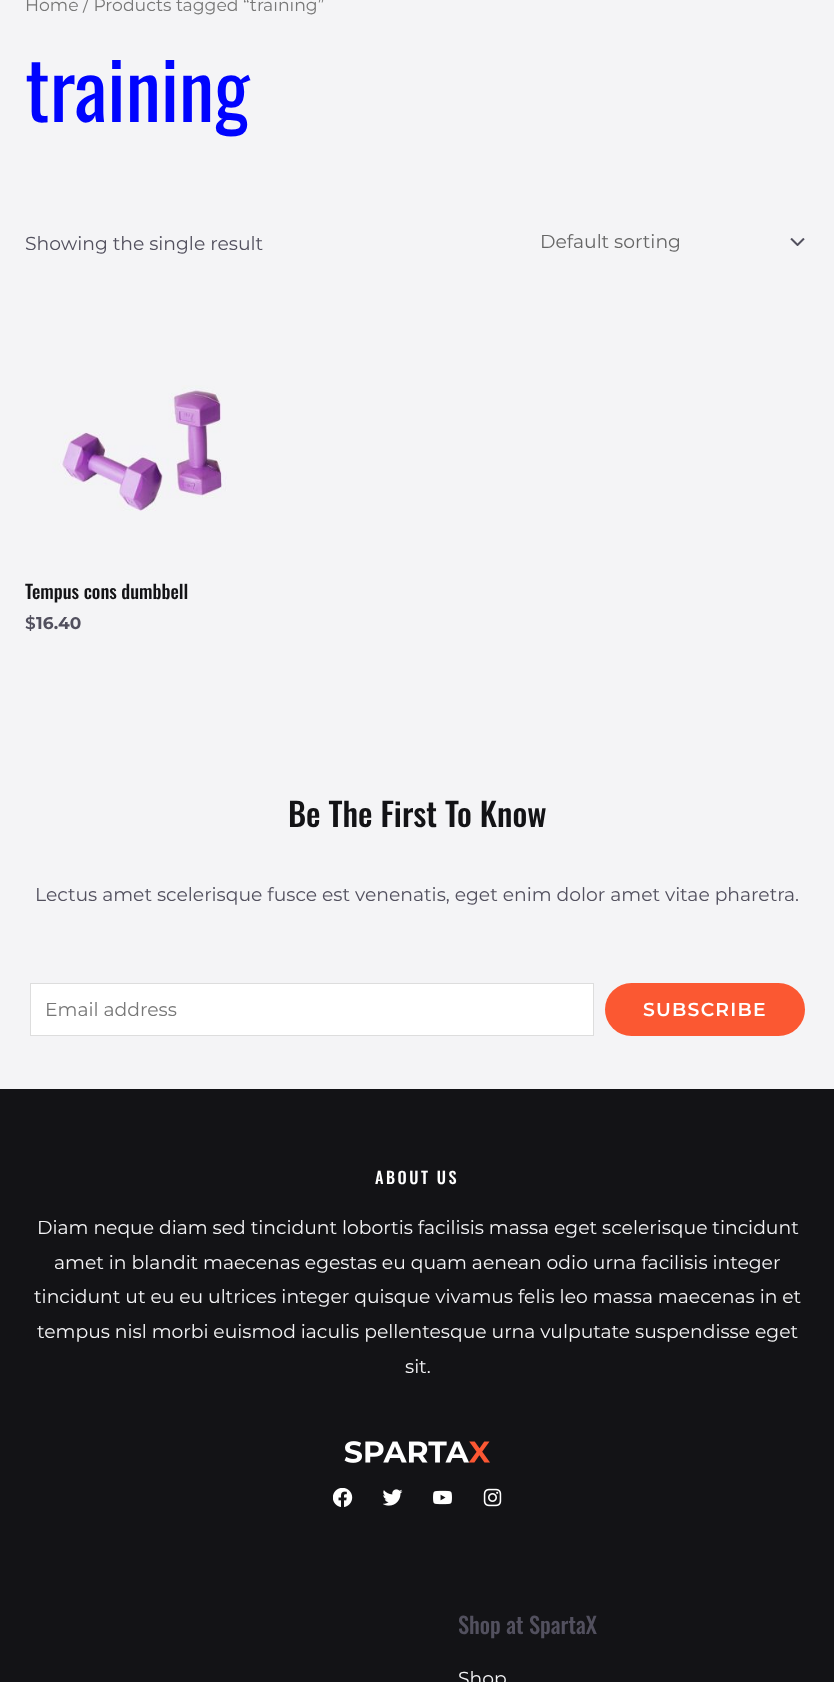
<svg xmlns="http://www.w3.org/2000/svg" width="834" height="1682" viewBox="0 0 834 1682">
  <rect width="100%" height="100%" fill="#f4f4f6"/>
  <text x="25" y="11" font-family="Montserrat" font-size="17.25" fill="#777777">Home / Products tagged “training”</text>
  <text x="25" y="122" font-family="Oswald" font-size="80" fill="#0004fe">training</text>
  <text x="25" y="250" font-family="Montserrat" font-size="18.75" fill="#52505e">Showing the single result</text>
  <image x="790" y="238" width="15" height="8" href="img1.png"/>
  <text x="540" y="248" font-family="Montserrat" font-size="18.75" fill="#666666">Default sorting</text>
  <image x="52" y="385" width="175" height="126" href="img2.png"/>
  <text x="25" y="599" font-family="Oswald" font-size="18.75" font-weight="500" fill="#131316">Tempus cons dumbbell</text>
  <text x="25" y="629" font-family="Montserrat" font-size="17" font-weight="600" fill="#52505e">$</text>
  <text x="36" y="629" font-family="Montserrat" font-size="17" font-weight="bold" fill="#52505e">16.40</text>
  <text x="288" y="827" font-family="Oswald" font-size="32.5" font-weight="500" fill="#131316">Be The First To Know</text>
  <text x="35" y="901" font-family="Montserrat" font-size="18.75" fill="#52505e">Lectus amet scelerisque fusce est venenatis, eget enim dolor amet vitae pharetra.</text>
  <rect x="30.5" y="983.5" width="563" height="52" fill="#ffffff" stroke="#dddddd"/>
  <text x="45" y="1016" font-family="Montserrat" font-size="18.75" fill="#777777">Email address</text>
  <rect x="605" y="983" width="200" height="53" rx="26.5" fill="#fb5832"/>
  <text x="643" y="1016" font-family="Montserrat" font-size="18.75" font-weight="600" letter-spacing="1.25" fill="#ffffff">SUBSCRIBE</text>
  <rect x="0" y="1089" width="834" height="593" fill="#131316"/>
  <text x="375" y="1184" font-family="Oswald" font-size="16.25" font-weight="500" letter-spacing="2.5" fill="#ffffff">ABOUT US</text>
  <text x="37" y="1234" font-family="Montserrat" font-size="18.75" fill="#f4f4f6">Diam neque diam sed tincidunt lobortis facilisis massa eget scelerisque tincidunt</text>
  <text x="54" y="1269" font-family="Montserrat" font-size="18.75" fill="#f4f4f6">amet in blandit maecenas egestas eu quam aenean odio urna facilisis integer</text>
  <text x="34" y="1303" font-family="Montserrat" font-size="18.75" fill="#f4f4f6">tincidunt ut eu eu ultrices integer quisque vivamus felis leo massa maecenas in et</text>
  <text x="37" y="1338" font-family="Montserrat" font-size="18.75" fill="#f4f4f6">tempus nisl morbi euismod iaculis pellentesque urna vulputate suspendisse eget</text>
  <text x="405" y="1373" font-family="Montserrat" font-size="18.75" fill="#f4f4f6">sit.</text>
  <image x="344" y="1441" width="146" height="22" href="img3.png"/>
  <image x="333" y="1488" width="20" height="19" href="img4.png"/>
  <image x="383" y="1489" width="20" height="17" href="img5.png"/>
  <image x="433" y="1490" width="19" height="15" href="img6.png"/>
  <image x="483" y="1488" width="19" height="19" href="img7.png"/>
  <text x="458" y="1634" font-family="Oswald" font-size="22.5" font-weight="500" fill="#52505e">Shop at SpartaX</text>
  <text x="458" y="1685" font-family="Montserrat" font-size="18.75" fill="#f4f4f6">Shop</text>
</svg>
